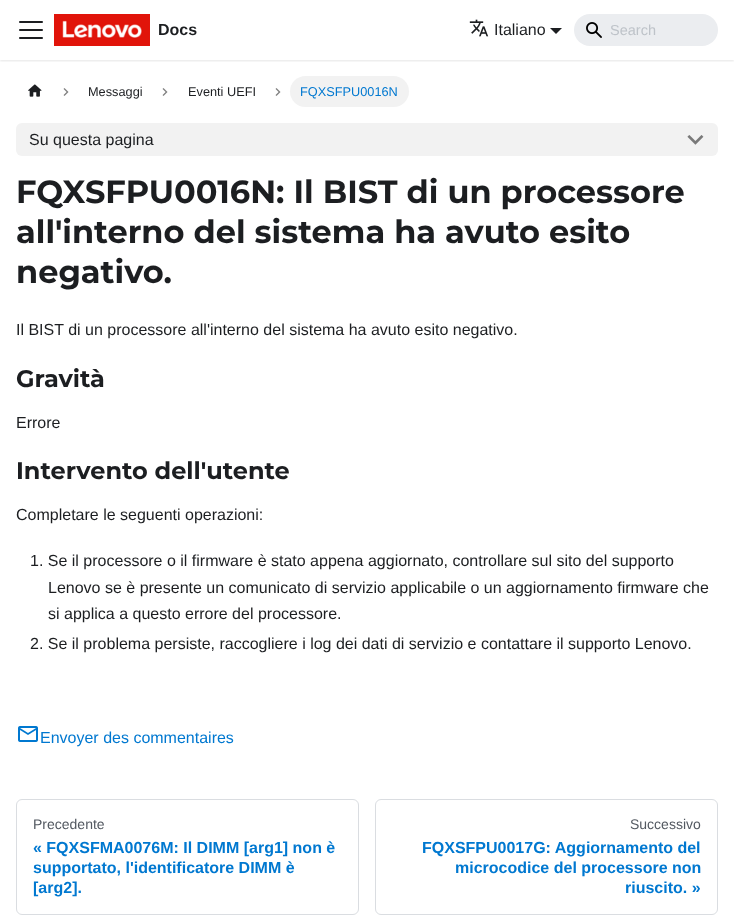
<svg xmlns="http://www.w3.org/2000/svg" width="734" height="916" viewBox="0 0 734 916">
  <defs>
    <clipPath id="clip1"><rect x="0" y="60" width="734" height="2"/></clipPath>
    <filter id="blur1" x="-50%" y="-200%" width="200%" height="500%"><feGaussianBlur stdDeviation="1"/></filter>
  </defs>
  <rect width="100%" height="100%" fill="#ffffff"/>
  <g clip-path="url(#clip1)">
    <rect x="0" y="1" width="734" height="60" fill="#000000" fill-opacity="0.1" filter="url(#blur1)"/>
  </g>
  <image x="19" y="21" width="24" height="18" href="img1.png"/>
  <image x="54" y="14" width="96" height="32" href="img2.png"/>
  <text x="158" y="35" font-family="Liberation Sans" font-size="16" font-weight="bold" fill="#1c1e21">Docs</text>
  <image x="469" y="19" width="20" height="18" href="img3.png"/>
  <text x="494" y="35" font-family="Liberation Sans" font-size="16" fill="#1c1e21">Italiano</text>
  <path d="M550 28H562L556 34Z" fill="#1c1e21"/>
  <rect x="574" y="14" width="144" height="32" rx="16" fill="#ebedf0"/>
  <image x="586" y="22" width="16" height="16" href="img4.png"/>
  <text x="610" y="35" font-family="Liberation Sans" font-size="14.5" fill="#bec3c9">Search</text>
  <image x="28" y="84" width="14" height="13" href="img5.png"/>
  <image x="63" y="88" width="6" height="8" href="img6.png"/>
  <text x="88" y="96" font-family="Liberation Sans" font-size="12.75" fill="#1c1e21">Messaggi</text>
  <image x="162" y="88" width="6" height="8" href="img6.png"/>
  <text x="188" y="96" font-family="Liberation Sans" font-size="12.75" fill="#1c1e21">Eventi UEFI</text>
  <image x="275" y="88" width="6" height="8" href="img6.png"/>
  <rect x="290" y="76" width="119" height="31" rx="15.5" fill="#f2f2f2"/>
  <text x="300" y="96" font-family="Liberation Sans" font-size="12.75" fill="#0078d0">FQXSFPU0016N</text>
  <rect x="16" y="123" width="702" height="33" rx="6" fill="#f2f2f2"/>
  <text x="29" y="145" font-family="Liberation Sans" font-size="16" fill="#1c1e21">Su questa pagina</text>
  <image x="687" y="135" width="17" height="10" href="img7.png"/>
  <text x="16" y="203" font-family="Montserrat" font-size="32" font-weight="bold" fill="#1c1e21">FQXSFPU0016N: Il BIST di un processore</text>
  <text x="16" y="243" font-family="Montserrat" font-size="32" font-weight="bold" fill="#1c1e21">all'interno del sistema ha avuto esito</text>
  <text x="16" y="283" font-family="Montserrat" font-size="32" font-weight="bold" fill="#1c1e21">negativo.</text>
  <text x="16" y="335" font-family="Liberation Sans" font-size="16" fill="#1c1e21">Il BIST di un processore all'interno del sistema ha avuto esito negativo.</text>
  <text x="16" y="387" font-family="Montserrat" font-size="24" font-weight="bold" fill="#1c1e21">Gravità</text>
  <text x="16" y="428" font-family="Liberation Sans" font-size="16" fill="#1c1e21">Errore</text>
  <text x="16" y="479" font-family="Montserrat" font-size="24" font-weight="bold" fill="#1c1e21">Intervento dell'utente</text>
  <text x="16" y="520" font-family="Liberation Sans" font-size="16" fill="#1c1e21">Completare le seguenti operazioni:</text>
  <text x="30" y="566" font-family="Liberation Sans" font-size="16" fill="#1c1e21">1. Se il processore o il firmware è stato appena aggiornato, controllare sul sito del supporto</text>
  <text x="48" y="593" font-family="Liberation Sans" font-size="16" fill="#1c1e21">Lenovo se è presente un comunicato di servizio applicabile o un aggiornamento firmware che</text>
  <text x="48" y="619" font-family="Liberation Sans" font-size="16" fill="#1c1e21">si applica a questo errore del processore.</text>
  <text x="30" y="649" font-family="Liberation Sans" font-size="16" fill="#1c1e21">2. Se il problema persiste, raccogliere i log dei dati di servizio e contattare il supporto Lenovo.</text>
  <image x="18" y="726" width="20" height="16" href="img8.png"/>
  <text x="40" y="743" font-family="Liberation Sans" font-size="16" fill="#0078d0">Envoyer des commentaires</text>
  <rect x="16.5" y="799.5" width="342" height="115" rx="5.5" fill="none" stroke="#dadde1"/>
  <text x="33" y="829" font-family="Liberation Sans" font-size="14" fill="#525860">Precedente</text>
  <text x="33" y="853" font-family="Liberation Sans" font-size="16" font-weight="bold" fill="#0078d0">« FQXSFMA0076M: Il DIMM [arg1] non è</text>
  <text x="33" y="873" font-family="Liberation Sans" font-size="16" font-weight="bold" fill="#0078d0">supportato, l'identificatore DIMM è</text>
  <text x="33" y="893" font-family="Liberation Sans" font-size="16" font-weight="bold" fill="#0078d0">[arg2].</text>
  <rect x="375.5" y="799.5" width="342" height="115" rx="5.5" fill="none" stroke="#dadde1"/>
  <text x="630" y="829" font-family="Liberation Sans" font-size="14" fill="#525860">Successivo</text>
  <text x="422" y="853" font-family="Liberation Sans" font-size="16" font-weight="bold" fill="#0078d0">FQXSFPU0017G: Aggiornamento del</text>
  <text x="455" y="873" font-family="Liberation Sans" font-size="16" font-weight="bold" fill="#0078d0">microcodice del processore non</text>
  <text x="625" y="893" font-family="Liberation Sans" font-size="16" font-weight="bold" fill="#0078d0">riuscito. »</text>
</svg>
